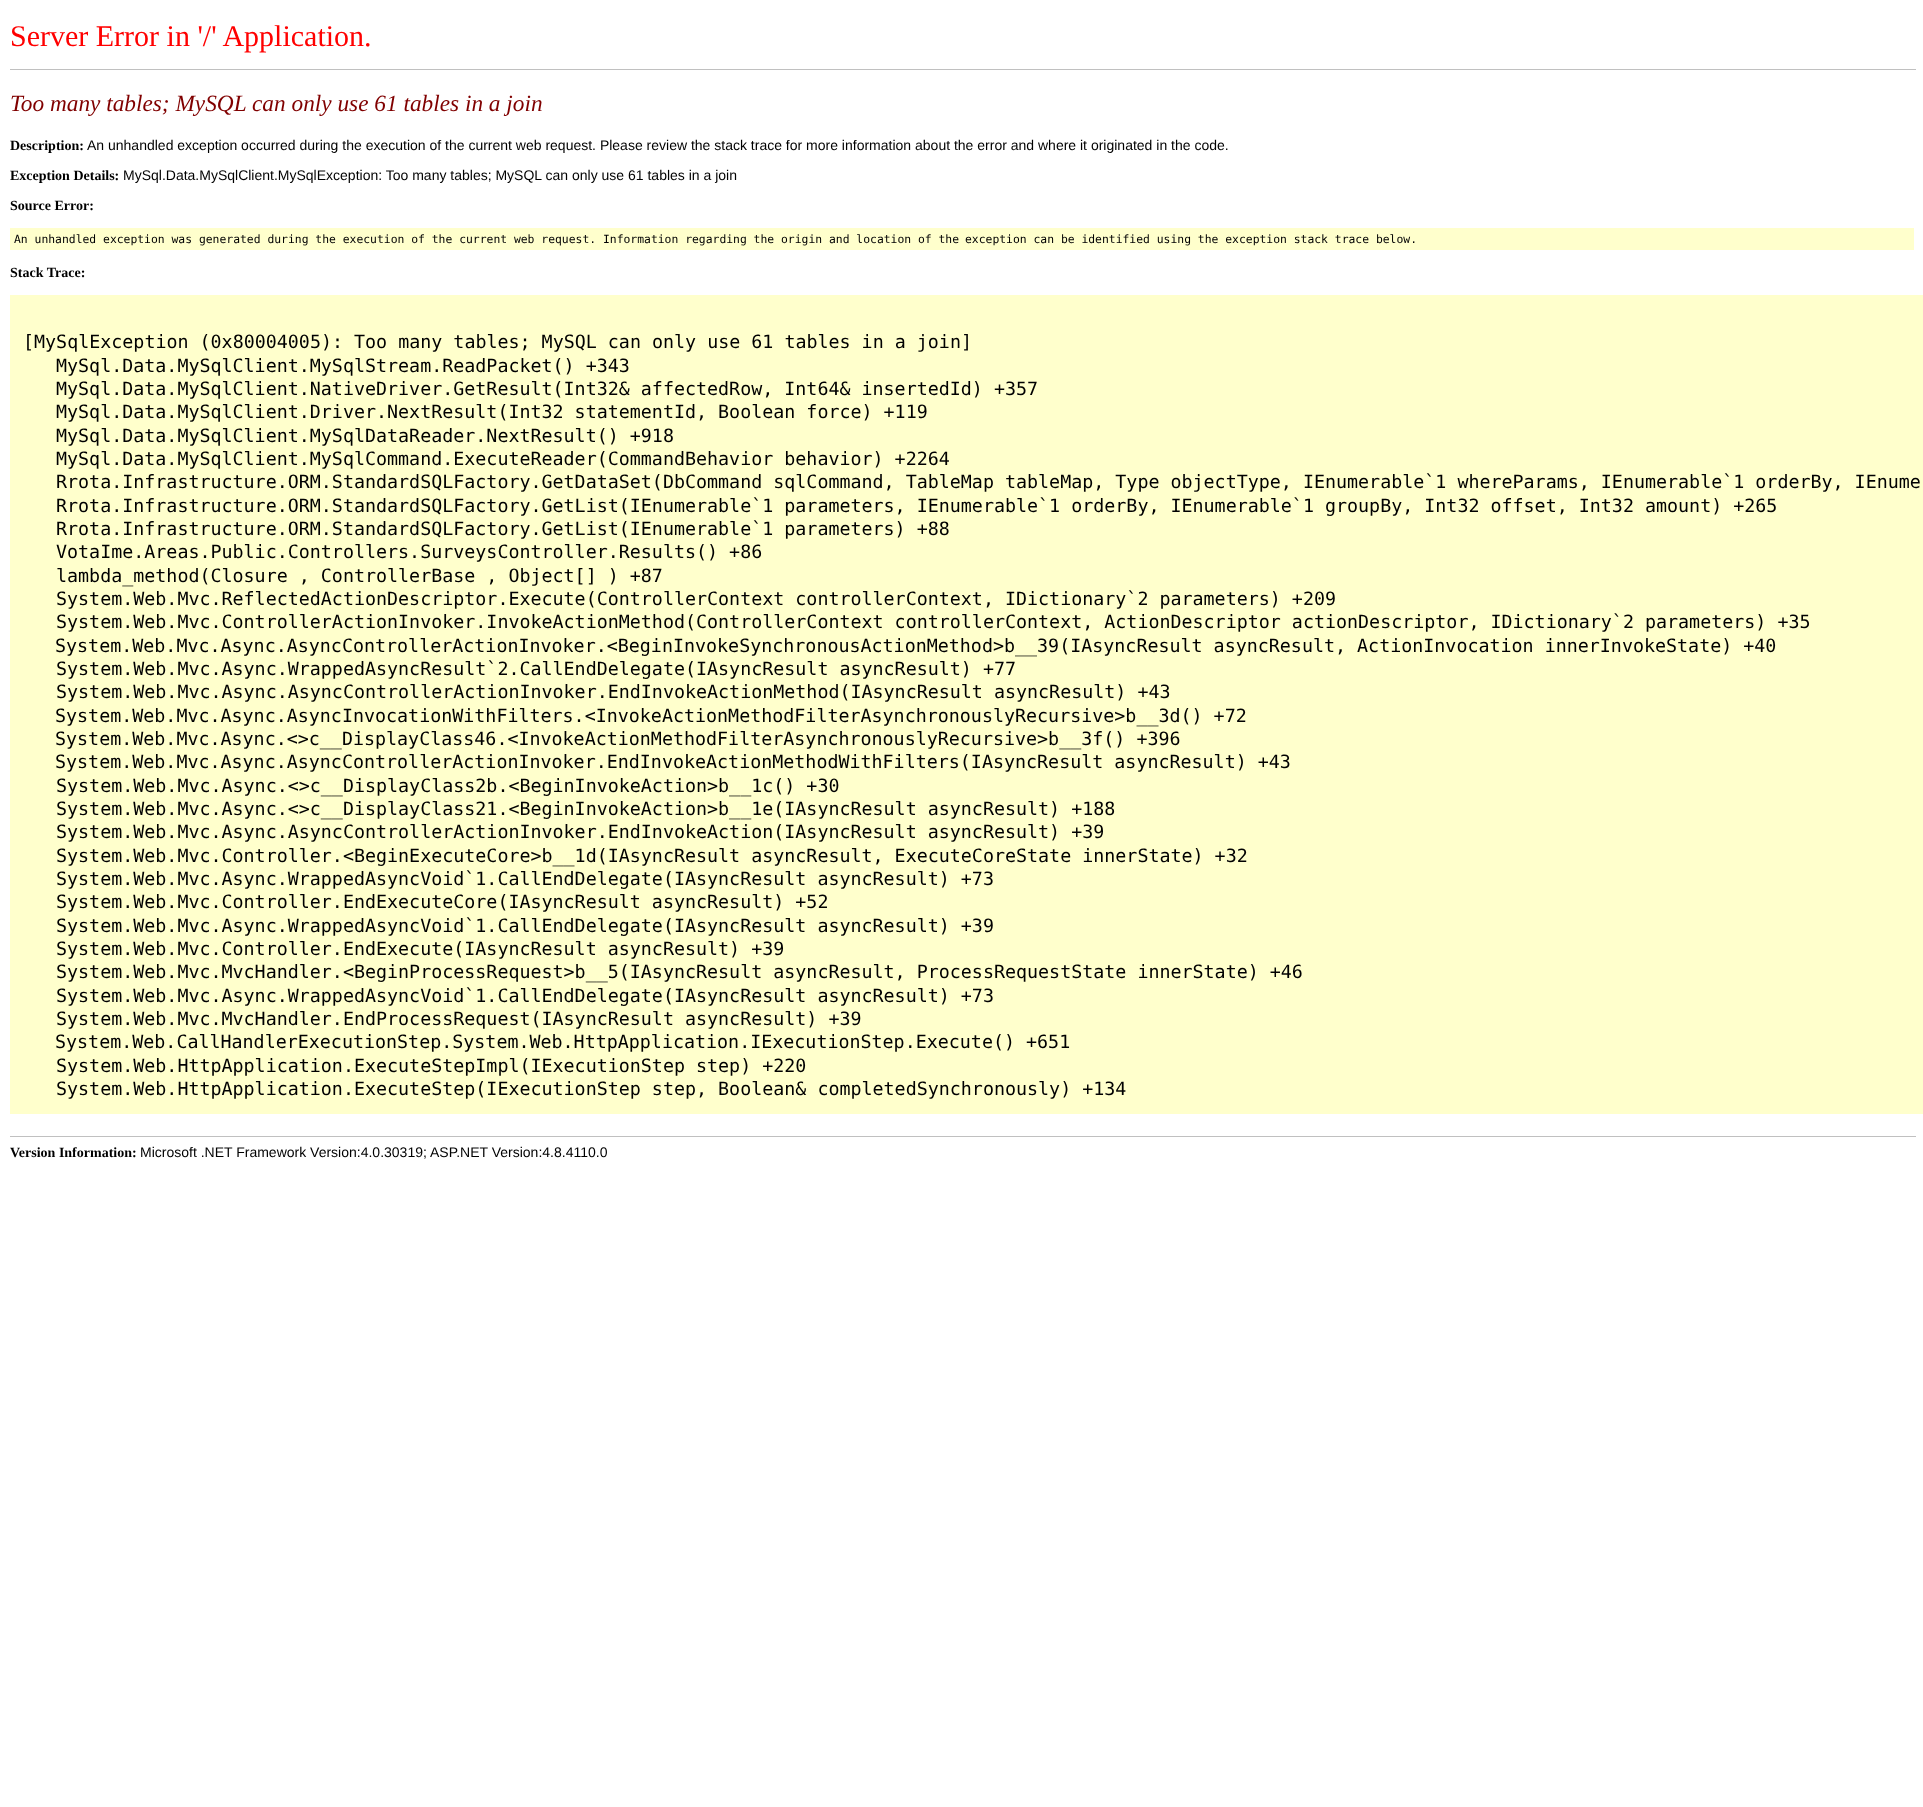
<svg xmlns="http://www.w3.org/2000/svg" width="1923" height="1807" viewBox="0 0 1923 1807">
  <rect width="100%" height="100%" fill="#ffffff"/>
  <text x="10" y="46" font-family="Liberation Serif" font-size="30" fill="#ff0000">Server Error in '/' Application.</text>
  <rect x="10" y="69" width="1906" height="1" fill="#c0c0c0"/>
  <text x="10" y="111" font-family="Liberation Serif" font-size="23.3" font-style="italic" fill="#800000">Too many tables; MySQL can only use 61 tables in a join</text>
  <text x="10" y="150" font-family="Liberation Serif" font-size="14" font-weight="bold" fill="#000000">Description:</text>
  <text x="87" y="150" font-family="Liberation Sans" font-size="14" fill="#000000">An unhandled exception occurred during the execution of the current web request. Please review the stack trace for more information about the error and where it originated in the code.</text>
  <text x="10" y="180" font-family="Liberation Serif" font-size="14" font-weight="bold" fill="#000000">Exception Details:</text>
  <text x="123" y="180" font-family="Liberation Sans" font-size="14" fill="#000000">MySql.Data.MySqlClient.MySqlException: Too many tables; MySQL can only use 61 tables in a join</text>
  <text x="10" y="210" font-family="Liberation Serif" font-size="14" font-weight="bold" fill="#000000">Source Error:</text>
  <rect x="10" y="228" width="1904" height="22" fill="#ffffcc"/>
  <text x="14" y="243" font-family="DejaVu Sans Mono" font-size="11.38" fill="#000000">An unhandled exception was generated during the execution of the current web request. Information regarding the origin and location of the</text>
  <text x="965" y="243" font-family="DejaVu Sans Mono" font-size="11.38" fill="#000000">exception can be identified using the exception stack trace below.</text>
  <text x="10" y="277" font-family="Liberation Serif" font-size="14" font-weight="bold" fill="#000000">Stack Trace:</text>
  <rect x="10" y="295" width="1913" height="819" fill="#ffffcc"/>
  <text x="23" y="348" font-family="DejaVu Sans Mono" font-size="18.33" fill="#000000">[MySqlException (0x80004005): Too many tables; MySQL can only use 61 tables in a join]</text>
  <text x="56" y="372" font-family="DejaVu Sans Mono" font-size="18.33" fill="#000000">MySql.Data.MySqlClient.MySqlStream.ReadPacket() +343</text>
  <text x="56" y="395" font-family="DejaVu Sans Mono" font-size="18.33" fill="#000000">MySql.Data.MySqlClient.NativeDriver.GetResult(Int32&amp; affectedRow, Int64&amp; insertedId) +357</text>
  <text x="56" y="418" font-family="DejaVu Sans Mono" font-size="18.33" fill="#000000">MySql.Data.MySqlClient.Driver.NextResult(Int32 statementId, Boolean force) +119</text>
  <text x="56" y="442" font-family="DejaVu Sans Mono" font-size="18.33" fill="#000000">MySql.Data.MySqlClient.MySqlDataReader.NextResult() +918</text>
  <text x="56" y="465" font-family="DejaVu Sans Mono" font-size="18.33" fill="#000000">MySql.Data.MySqlClient.MySqlCommand.ExecuteReader(CommandBehavior behavior) +2264</text>
  <text x="56" y="488" font-family="DejaVu Sans Mono" font-size="18.33" fill="#000000">Rrota.Infrastructure.ORM.StandardSQLFactory.GetDataSet(DbCommand sqlCommand, TableMap tableMap, Type objectType, IEnumerable`1 whereParams, IEnumerable`1 orderBy, IEnume</text>
  <text x="56" y="512" font-family="DejaVu Sans Mono" font-size="18.33" fill="#000000">Rrota.Infrastructure.ORM.StandardSQLFactory.GetList(IEnumerable`1 parameters, IEnumerable`1 orderBy, IEnumerable`1 groupBy, Int32 offset, Int32 amount) +265</text>
  <text x="56" y="535" font-family="DejaVu Sans Mono" font-size="18.33" fill="#000000">Rrota.Infrastructure.ORM.StandardSQLFactory.GetList(IEnumerable`1 parameters) +88</text>
  <text x="56" y="558" font-family="DejaVu Sans Mono" font-size="18.33" fill="#000000">VotaIme.Areas.Public.Controllers.SurveysController.Results() +86</text>
  <text x="56" y="582" font-family="DejaVu Sans Mono" font-size="18.33" fill="#000000">lambda_method(Closure , ControllerBase , Object[] ) +87</text>
  <text x="56" y="605" font-family="DejaVu Sans Mono" font-size="18.33" fill="#000000">System.Web.Mvc.ReflectedActionDescriptor.Execute(ControllerContext controllerContext, IDictionary`2 parameters) +209</text>
  <text x="56" y="628" font-family="DejaVu Sans Mono" font-size="18.33" fill="#000000">System.Web.Mvc.ControllerActionInvoker.InvokeActionMethod(ControllerContext controllerContext, ActionDescriptor actionDescriptor, IDictionary`2 parameters) +35</text>
  <text x="55" y="652" font-family="DejaVu Sans Mono" font-size="18.33" fill="#000000">System.Web.Mvc.Async.AsyncControllerActionInvoker.&lt;BeginInvokeSynchronousActionMethod&gt;b__39(IAsyncResult asyncResult, ActionInvocation innerInvokeState) +40</text>
  <text x="56" y="675" font-family="DejaVu Sans Mono" font-size="18.33" fill="#000000">System.Web.Mvc.Async.WrappedAsyncResult`2.CallEndDelegate(IAsyncResult asyncResult) +77</text>
  <text x="56" y="698" font-family="DejaVu Sans Mono" font-size="18.33" fill="#000000">System.Web.Mvc.Async.AsyncControllerActionInvoker.EndInvokeActionMethod(IAsyncResult asyncResult) +43</text>
  <text x="55" y="722" font-family="DejaVu Sans Mono" font-size="18.33" fill="#000000">System.Web.Mvc.Async.AsyncInvocationWithFilters.&lt;InvokeActionMethodFilterAsynchronouslyRecursive&gt;b__3d() +72</text>
  <text x="55" y="745" font-family="DejaVu Sans Mono" font-size="18.33" fill="#000000">System.Web.Mvc.Async.&lt;&gt;c__DisplayClass46.&lt;InvokeActionMethodFilterAsynchronouslyRecursive&gt;b__3f() +396</text>
  <text x="55" y="768" font-family="DejaVu Sans Mono" font-size="18.33" fill="#000000">System.Web.Mvc.Async.AsyncControllerActionInvoker.EndInvokeActionMethodWithFilters(IAsyncResult asyncResult) +43</text>
  <text x="56" y="792" font-family="DejaVu Sans Mono" font-size="18.33" fill="#000000">System.Web.Mvc.Async.&lt;&gt;c__DisplayClass2b.&lt;BeginInvokeAction&gt;b__1c() +30</text>
  <text x="56" y="815" font-family="DejaVu Sans Mono" font-size="18.33" fill="#000000">System.Web.Mvc.Async.&lt;&gt;c__DisplayClass21.&lt;BeginInvokeAction&gt;b__1e(IAsyncResult asyncResult) +188</text>
  <text x="56" y="838" font-family="DejaVu Sans Mono" font-size="18.33" fill="#000000">System.Web.Mvc.Async.AsyncControllerActionInvoker.EndInvokeAction(IAsyncResult asyncResult) +39</text>
  <text x="56" y="862" font-family="DejaVu Sans Mono" font-size="18.33" fill="#000000">System.Web.Mvc.Controller.&lt;BeginExecuteCore&gt;b__1d(IAsyncResult asyncResult, ExecuteCoreState innerState) +32</text>
  <text x="56" y="885" font-family="DejaVu Sans Mono" font-size="18.33" fill="#000000">System.Web.Mvc.Async.WrappedAsyncVoid`1.CallEndDelegate(IAsyncResult asyncResult) +73</text>
  <text x="56" y="908" font-family="DejaVu Sans Mono" font-size="18.33" fill="#000000">System.Web.Mvc.Controller.EndExecuteCore(IAsyncResult asyncResult) +52</text>
  <text x="56" y="932" font-family="DejaVu Sans Mono" font-size="18.33" fill="#000000">System.Web.Mvc.Async.WrappedAsyncVoid`1.CallEndDelegate(IAsyncResult asyncResult) +39</text>
  <text x="56" y="955" font-family="DejaVu Sans Mono" font-size="18.33" fill="#000000">System.Web.Mvc.Controller.EndExecute(IAsyncResult asyncResult) +39</text>
  <text x="56" y="978" font-family="DejaVu Sans Mono" font-size="18.33" fill="#000000">System.Web.Mvc.MvcHandler.&lt;BeginProcessRequest&gt;b__5(IAsyncResult asyncResult, ProcessRequestState innerState) +46</text>
  <text x="56" y="1002" font-family="DejaVu Sans Mono" font-size="18.33" fill="#000000">System.Web.Mvc.Async.WrappedAsyncVoid`1.CallEndDelegate(IAsyncResult asyncResult) +73</text>
  <text x="56" y="1025" font-family="DejaVu Sans Mono" font-size="18.33" fill="#000000">System.Web.Mvc.MvcHandler.EndProcessRequest(IAsyncResult asyncResult) +39</text>
  <text x="55" y="1048" font-family="DejaVu Sans Mono" font-size="18.33" fill="#000000">System.Web.CallHandlerExecutionStep.System.Web.HttpApplication.IExecutionStep.Execute() +651</text>
  <text x="56" y="1072" font-family="DejaVu Sans Mono" font-size="18.33" fill="#000000">System.Web.HttpApplication.ExecuteStepImpl(IExecutionStep step) +220</text>
  <text x="56" y="1095" font-family="DejaVu Sans Mono" font-size="18.33" fill="#000000">System.Web.HttpApplication.ExecuteStep(IExecutionStep step, Boolean&amp; completedSynchronously) +134</text>
  <rect x="10" y="1136" width="1906" height="1" fill="#c0c0c0"/>
  <text x="10" y="1157" font-family="Liberation Serif" font-size="14" font-weight="bold" fill="#000000">Version Information:</text>
  <text x="140" y="1157" font-family="Liberation Sans" font-size="14" fill="#000000">Microsoft .NET Framework Version:4.0.30319; ASP.NET Version:4.8.4110.0</text>
</svg>
